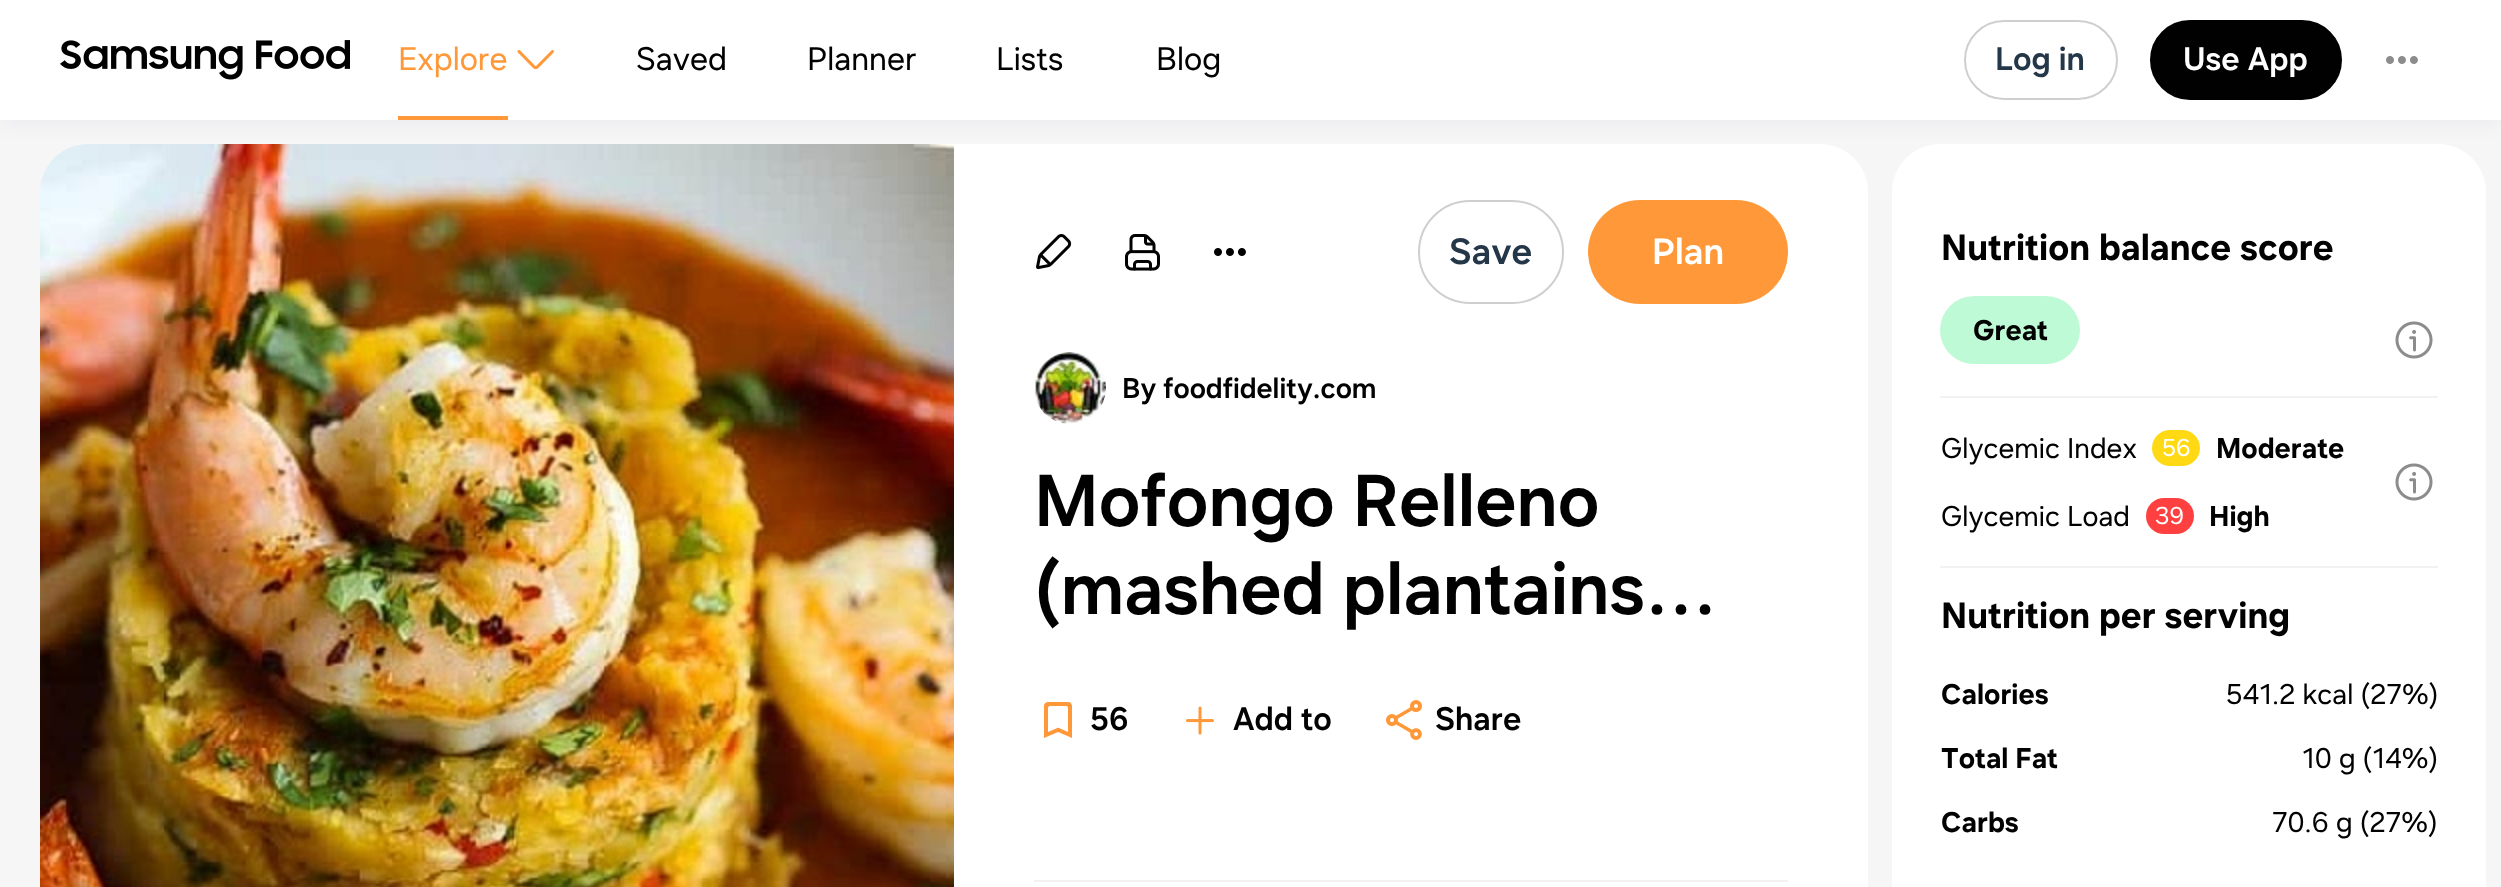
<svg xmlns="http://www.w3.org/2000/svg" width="2501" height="887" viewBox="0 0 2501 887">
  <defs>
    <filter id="blur1" x="-50%" y="-200%" width="200%" height="500%"><feGaussianBlur stdDeviation="12"/></filter>
    <clipPath id="clip1"><rect x="398" y="0" width="110" height="120"/></clipPath>
  </defs>
  <rect width="100%" height="100%" fill="#f6f6f6"/>
  <image x="40" y="144" width="914" height="743" href="img4.png"/>
  <path d="M954 144H1820C1846.5 144 1868 165.5 1868 192V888H954Z" fill="#ffffff"/>
  <path d="M1940 144H2438C2464.5 144 2486 165.5 2486 192V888H1892V192C1892 165.5 1913.5 144 1940 144Z" fill="#ffffff"/>
  <rect x="0" y="0" width="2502" height="120" fill="#4f4f6a" fill-opacity="0.06" filter="url(#blur1)"/>
  <rect x="0" y="0" width="2501" height="120" fill="#ffffff"/>
  <image x="60" y="40" width="290" height="40" href="img1.png"/>
  <g clip-path="url(#clip1)">
    <path d="M200-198H706V318H200ZM398-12H508C510-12 512-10 512-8V112C512 114 510 116 508 116H398C396 116 394 114 394 112V-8C394-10 396-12 398-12Z" fill="#ff9838" fill-rule="evenodd"/>
  </g>
  <text x="398" y="70" font-family="'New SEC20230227'" font-size="32" fill="#ff9838">Explore</text>
  <image x="517" y="50" width="37" height="20" href="img2.png"/>
  <text x="636" y="70" font-family="'New SEC20230227'" font-size="32" fill="#010101">Saved</text>
  <text x="807" y="70" font-family="'New SEC20230227'" font-size="32" fill="#010101">Planner</text>
  <text x="996" y="70" font-family="'New SEC20230227'" font-size="32" fill="#010101">Lists</text>
  <text x="1156" y="70" font-family="'New SEC20230227'" font-size="32" fill="#010101">Blog</text>
  <rect x="1965" y="21" width="152" height="78" rx="39" fill="none" stroke="#cfcfcf" stroke-width="2"/>
  <text x="1995" y="70" font-family="'New SEC20230227'" font-size="32" font-weight="600" fill="#233748">Log in</text>
  <rect x="2151" y="21" width="190" height="78" rx="39" fill="#010101" stroke="#010101" stroke-width="2"/>
  <text x="2183" y="70" font-family="'New SEC20230227'" font-size="32" font-weight="600" fill="#ffffff">Use App</text>
  <image x="2386" y="56" width="32" height="8" href="img3.png"/>
  <image x="1036" y="234" width="36" height="36" href="img5.png"/>
  <image x="1125" y="234" width="35" height="37" href="img6.png"/>
  <image x="1214" y="248" width="32" height="8" href="img7.png"/>
  <rect x="1419" y="201" width="144" height="102" rx="51" fill="none" stroke="#cfcfcf" stroke-width="2"/>
  <text x="1449" y="264" font-family="'New SEC20230227'" font-size="36" font-weight="600" fill="#233748">Save</text>
  <rect x="1588" y="200" width="200" height="104" rx="52" fill="#ff9838"/>
  <text x="1652" y="264" font-family="'New SEC20230227'" font-size="36" font-weight="600" fill="#ffffff">Plan</text>
  <image x="1034" y="352" width="72" height="72" href="img8.png"/>
  <text x="1122" y="398" font-family="'New SEC20230227'" font-size="28" font-weight="600" fill="#010101">By foodfidelity.com</text>
  <text x="1034" y="526" font-family="'New SEC20230227'" font-size="72" font-weight="600" fill="#010101">Mofongo Relleno</text>
  <text x="1034" y="614" font-family="'New SEC20230227'" font-size="72" font-weight="600" fill="#010101">(mashed plantains…</text>
  <image x="1044" y="702" width="28" height="36" href="img9.png"/>
  <text x="1090" y="730" font-family="'New SEC20230227'" font-size="32" font-weight="600" fill="#010101">56</text>
  <image x="1186" y="706" width="28" height="29" href="img10.png"/>
  <text x="1233" y="730" font-family="'New SEC20230227'" font-size="32" font-weight="600" fill="#010101">Add to</text>
  <image x="1386" y="700" width="36" height="40" href="img11.png"/>
  <text x="1435" y="730" font-family="'New SEC20230227'" font-size="32" font-weight="600" fill="#010101">Share</text>
  <rect x="1034" y="880" width="754" height="2" fill="#f2f2f2"/>
  <text x="1941" y="260" font-family="'New SEC20230227'" font-size="36" font-weight="bold" fill="#010101">Nutrition balance score</text>
  <rect x="1940" y="296" width="140" height="68" rx="34" fill="#befad6"/>
  <text x="1973" y="340" font-family="'New SEC20230227'" font-size="28" font-weight="bold" fill="#010101">Great</text>
  <image x="2395" y="321" width="38" height="38" href="img12.png"/>
  <rect x="1940" y="396" width="498" height="2" fill="#f2f2f2"/>
  <rect x="1940" y="566" width="498" height="2" fill="#f2f2f2"/>
  <text x="1941" y="458" font-family="'New SEC20230227'" font-size="28" fill="#010101">Glycemic Index</text>
  <rect x="2152" y="430" width="48" height="36" rx="18" fill="#ffd914"/>
  <text x="2162" y="456" font-family="'New SEC20230227'" font-size="24" fill="#ffffff">56</text>
  <text x="2216" y="458" font-family="'New SEC20230227'" font-size="28" font-weight="bold" fill="#010101">Moderate</text>
  <text x="1941" y="526" font-family="'New SEC20230227'" font-size="28" fill="#010101">Glycemic Load</text>
  <rect x="2146" y="498" width="48" height="36" rx="18" fill="#ff4040"/>
  <text x="2155" y="524" font-family="'New SEC20230227'" font-size="24" fill="#ffffff">39</text>
  <text x="2209" y="526" font-family="'New SEC20230227'" font-size="28" font-weight="bold" fill="#010101">High</text>
  <image x="2395" y="463" width="38" height="38" href="img12.png"/>
  <text x="1941" y="628" font-family="'New SEC20230227'" font-size="36" font-weight="bold" fill="#010101">Nutrition per serving</text>
  <text x="1941" y="704" font-family="'New SEC20230227'" font-size="28" font-weight="bold" fill="#010101">Calories</text>
  <text x="2226" y="704" font-family="'New SEC20230227'" font-size="28" fill="#010101">541.2 kcal (27%)</text>
  <text x="1941" y="768" font-family="'New SEC20230227'" font-size="28" font-weight="bold" fill="#010101">Total Fat</text>
  <text x="2302" y="768" font-family="'New SEC20230227'" font-size="28" fill="#010101">10 g (14%)</text>
  <text x="1941" y="832" font-family="'New SEC20230227'" font-size="28" font-weight="bold" fill="#010101">Carbs</text>
  <text x="2272" y="832" font-family="'New SEC20230227'" font-size="28" fill="#010101">70.6 g (27%)</text>
</svg>
